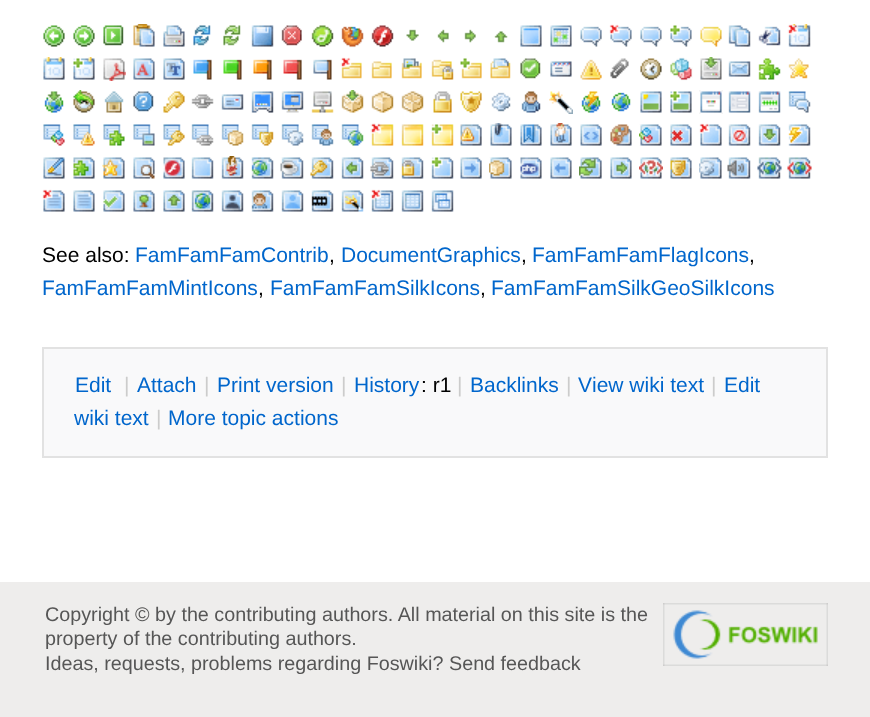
<svg xmlns="http://www.w3.org/2000/svg" width="870" height="717" viewBox="0 0 870 717">
  <rect width="100%" height="100%" fill="#ffffff"/>
  <image x="43" y="25" width="22" height="22" href="img1.png"/>
  <image x="73" y="25" width="22" height="22" href="img2.png"/>
  <image x="103" y="25" width="21" height="21" href="img3.png"/>
  <image x="133" y="24" width="22" height="23" href="img4.png"/>
  <image x="163" y="25" width="22" height="22" href="img5.png"/>
  <image x="193" y="25" width="18" height="21" href="img6.png"/>
  <image x="223" y="25" width="18" height="21" href="img7.png"/>
  <image x="251" y="25" width="23" height="22" href="img8.png"/>
  <image x="281" y="25" width="21" height="21" href="img9.png"/>
  <image x="311" y="25" width="23" height="22" href="img10.png"/>
  <image x="341" y="26" width="23" height="22" href="img11.png"/>
  <image x="371" y="25" width="23" height="22" href="img12.png"/>
  <image x="406" y="29" width="13" height="12" href="img13.png"/>
  <image x="437" y="29" width="12" height="14" href="img14.png"/>
  <image x="464" y="29" width="12" height="14" href="img15.png"/>
  <image x="494" y="31" width="14" height="12" href="img16.png"/>
  <image x="520" y="25" width="22" height="22" href="img17.png"/>
  <image x="550" y="25" width="22" height="22" href="img18.png"/>
  <image x="580" y="26" width="22" height="21" href="img19.png"/>
  <image x="609" y="24" width="23" height="23" href="img20.png"/>
  <image x="640" y="26" width="22" height="21" href="img21.png"/>
  <image x="670" y="25" width="22" height="22" href="img22.png"/>
  <image x="700" y="26" width="22" height="21" href="img23.png"/>
  <image x="728" y="25" width="23" height="22" href="img24.png"/>
  <image x="758" y="26" width="23" height="20" href="img25.png"/>
  <image x="787" y="24" width="24" height="23" href="img26.png"/>
  <image x="43" y="57" width="22" height="23" href="img27.png"/>
  <image x="73" y="57" width="22" height="23" href="img28.png"/>
  <image x="103" y="58" width="23" height="23" href="img29.png"/>
  <image x="133" y="58" width="22" height="22" href="img30.png"/>
  <image x="163" y="58" width="22" height="22" href="img31.png"/>
  <image x="193" y="59" width="19" height="21" href="img32.png"/>
  <image x="223" y="59" width="19" height="21" href="img33.png"/>
  <image x="253" y="59" width="19" height="21" href="img34.png"/>
  <image x="283" y="59" width="19" height="21" href="img35.png"/>
  <image x="313" y="59" width="19" height="21" href="img36.png"/>
  <image x="340" y="57" width="22" height="22" href="img37.png"/>
  <image x="371" y="61" width="21" height="18" href="img38.png"/>
  <image x="401" y="58" width="21" height="21" href="img39.png"/>
  <image x="431" y="59" width="23" height="21" href="img40.png"/>
  <image x="460" y="58" width="22" height="21" href="img41.png"/>
  <image x="490" y="58" width="21" height="21" href="img42.png"/>
  <image x="520" y="58" width="21" height="21" href="img43.png"/>
  <image x="550" y="61" width="22" height="16" href="img44.png"/>
  <image x="580" y="59" width="22" height="21" href="img45.png"/>
  <image x="610" y="58" width="19" height="21" href="img46.png"/>
  <image x="640" y="58" width="22" height="22" href="img47.png"/>
  <image x="670" y="57" width="23" height="24" href="img48.png"/>
  <image x="700" y="57" width="22" height="23" href="img49.png"/>
  <image x="728" y="61" width="23" height="16" href="img50.png"/>
  <image x="758" y="58" width="23" height="22" href="img51.png"/>
  <image x="788" y="58" width="21" height="21" href="img52.png"/>
  <image x="44" y="91" width="20" height="22" href="img53.png"/>
  <image x="73" y="90" width="22" height="23" href="img54.png"/>
  <image x="104" y="91" width="20" height="22" href="img55.png"/>
  <image x="133" y="91" width="21" height="21" href="img56.png"/>
  <image x="163" y="91" width="22" height="22" href="img57.png"/>
  <image x="191" y="94" width="23" height="15" href="img58.png"/>
  <image x="221" y="94" width="23" height="16" href="img59.png"/>
  <image x="251" y="91" width="23" height="22" href="img60.png"/>
  <image x="281" y="91" width="23" height="22" href="img61.png"/>
  <image x="311" y="91" width="23" height="22" href="img62.png"/>
  <image x="341" y="90" width="23" height="23" href="img63.png"/>
  <image x="371" y="91" width="23" height="22" href="img64.png"/>
  <image x="401" y="91" width="23" height="22" href="img65.png"/>
  <image x="433" y="91" width="19" height="22" href="img66.png"/>
  <image x="460" y="91" width="22" height="22" href="img67.png"/>
  <image x="491" y="92" width="20" height="20" href="img68.png"/>
  <image x="521" y="91" width="20" height="22" href="img69.png"/>
  <image x="549" y="91" width="24" height="23" href="img70.png"/>
  <image x="581" y="91" width="20" height="22" href="img71.png"/>
  <image x="611" y="92" width="20" height="20" href="img72.png"/>
  <image x="640" y="91" width="22" height="22" href="img73.png"/>
  <image x="670" y="91" width="22" height="22" href="img74.png"/>
  <image x="699" y="90" width="24" height="24" href="img75.png"/>
  <image x="728" y="91" width="23" height="22" href="img76.png"/>
  <image x="758" y="91" width="23" height="22" href="img77.png"/>
  <image x="788" y="91" width="23" height="22" href="img78.png"/>
  <image x="43" y="124" width="22" height="22" href="img79.png"/>
  <image x="73" y="124" width="22" height="22" href="img80.png"/>
  <image x="103" y="124" width="22" height="22" href="img81.png"/>
  <image x="133" y="124" width="22" height="22" href="img82.png"/>
  <image x="163" y="124" width="22" height="22" href="img83.png"/>
  <image x="191" y="124" width="23" height="22" href="img84.png"/>
  <image x="221" y="124" width="23" height="22" href="img85.png"/>
  <image x="251" y="124" width="23" height="22" href="img86.png"/>
  <image x="281" y="124" width="23" height="22" href="img87.png"/>
  <image x="311" y="124" width="23" height="22" href="img88.png"/>
  <image x="341" y="124" width="23" height="22" href="img89.png"/>
  <image x="370" y="123" width="24" height="23" href="img90.png"/>
  <image x="401" y="124" width="23" height="22" href="img91.png"/>
  <image x="431" y="124" width="23" height="22" href="img92.png"/>
  <image x="460" y="124" width="22" height="22" href="img93.png"/>
  <image x="490" y="123" width="22" height="23" href="img94.png"/>
  <image x="520" y="124" width="22" height="22" href="img95.png"/>
  <image x="550" y="123" width="22" height="23" href="img96.png"/>
  <image x="580" y="124" width="22" height="22" href="img97.png"/>
  <image x="610" y="124" width="22" height="22" href="img98.png"/>
  <image x="639" y="124" width="23" height="22" href="img99.png"/>
  <image x="670" y="124" width="22" height="22" href="img100.png"/>
  <image x="699" y="123" width="23" height="23" href="img101.png"/>
  <image x="728" y="124" width="23" height="22" href="img102.png"/>
  <image x="758" y="124" width="23" height="22" href="img103.png"/>
  <image x="788" y="124" width="23" height="22" href="img104.png"/>
  <image x="43" y="157" width="22" height="22" href="img105.png"/>
  <image x="73" y="157" width="22" height="22" href="img106.png"/>
  <image x="102" y="157" width="23" height="22" href="img107.png"/>
  <image x="133" y="157" width="22" height="22" href="img108.png"/>
  <image x="163" y="157" width="22" height="22" href="img109.png"/>
  <image x="191" y="157" width="23" height="22" href="img110.png"/>
  <image x="221" y="156" width="23" height="23" href="img111.png"/>
  <image x="251" y="157" width="23" height="22" href="img112.png"/>
  <image x="280" y="157" width="24" height="22" href="img113.png"/>
  <image x="310" y="157" width="24" height="22" href="img114.png"/>
  <image x="341" y="157" width="23" height="22" href="img115.png"/>
  <image x="370" y="157" width="24" height="22" href="img116.png"/>
  <image x="401" y="157" width="23" height="22" href="img117.png"/>
  <image x="431" y="157" width="23" height="22" href="img118.png"/>
  <image x="460" y="157" width="22" height="22" href="img119.png"/>
  <image x="489" y="157" width="23" height="22" href="img120.png"/>
  <image x="520" y="157" width="22" height="22" href="img121.png"/>
  <image x="550" y="157" width="22" height="22" href="img122.png"/>
  <image x="579" y="157" width="23" height="22" href="img123.png"/>
  <image x="610" y="157" width="22" height="22" href="img124.png"/>
  <image x="639" y="157" width="24" height="22" href="img125.png"/>
  <image x="670" y="157" width="22" height="22" href="img126.png"/>
  <image x="699" y="157" width="23" height="22" href="img127.png"/>
  <image x="727" y="157" width="24" height="22" href="img128.png"/>
  <image x="757" y="157" width="25" height="22" href="img129.png"/>
  <image x="787" y="157" width="25" height="22" href="img130.png"/>
  <image x="42" y="189" width="23" height="23" href="img131.png"/>
  <image x="73" y="190" width="22" height="22" href="img132.png"/>
  <image x="103" y="190" width="22" height="22" href="img133.png"/>
  <image x="133" y="190" width="22" height="22" href="img134.png"/>
  <image x="163" y="190" width="22" height="22" href="img135.png"/>
  <image x="191" y="190" width="23" height="22" href="img136.png"/>
  <image x="221" y="190" width="23" height="22" href="img137.png"/>
  <image x="251" y="190" width="23" height="22" href="img138.png"/>
  <image x="281" y="190" width="23" height="22" href="img139.png"/>
  <image x="311" y="190" width="23" height="22" href="img140.png"/>
  <image x="341" y="190" width="23" height="22" href="img141.png"/>
  <image x="370" y="189" width="24" height="23" href="img142.png"/>
  <image x="401" y="190" width="23" height="22" href="img143.png"/>
  <image x="431" y="190" width="23" height="22" href="img144.png"/>
  <text x="42" y="262" font-family="Liberation Sans" font-size="21" fill="#000000">See also:</text>
  <text x="135" y="262" font-family="Liberation Sans" font-size="21" fill="#0066cc">FamFamFamContrib</text>
  <text x="329" y="262" font-family="Liberation Sans" font-size="21" fill="#000000">,</text>
  <text x="341" y="262" font-family="Liberation Sans" font-size="21" fill="#0066cc">DocumentGraphics</text>
  <text x="521" y="262" font-family="Liberation Sans" font-size="21" fill="#000000">,</text>
  <text x="532" y="262" font-family="Liberation Sans" font-size="21" fill="#0066cc">FamFamFamFlagIcons</text>
  <text x="749" y="262" font-family="Liberation Sans" font-size="21" fill="#000000">,</text>
  <text x="42" y="295" font-family="Liberation Sans" font-size="21" fill="#0066cc">FamFamFamMintIcons</text>
  <text x="258" y="295" font-family="Liberation Sans" font-size="21" fill="#000000">,</text>
  <text x="270" y="295" font-family="Liberation Sans" font-size="21" fill="#0066cc">FamFamFamSilkIcons</text>
  <text x="480" y="295" font-family="Liberation Sans" font-size="21" fill="#000000">,</text>
  <text x="491" y="295" font-family="Liberation Sans" font-size="21" fill="#0066cc">FamFamFamSilkGeoSilkIcons</text>
  <rect x="43" y="348" width="784" height="109" fill="#f9f9fa" stroke="#e2e2e2" stroke-width="2"/>
  <text x="75" y="392" font-family="Liberation Sans" font-size="21" fill="#0066cc">Edit</text>
  <text x="124" y="392" font-family="Liberation Sans" font-size="21" fill="#cccccc">|</text>
  <text x="137" y="392" font-family="Liberation Sans" font-size="21" fill="#0066cc">Attach</text>
  <text x="204" y="392" font-family="Liberation Sans" font-size="21" fill="#cccccc">|</text>
  <text x="217" y="392" font-family="Liberation Sans" font-size="21" fill="#0066cc">Print version</text>
  <text x="341" y="392" font-family="Liberation Sans" font-size="21" fill="#cccccc">|</text>
  <text x="354" y="392" font-family="Liberation Sans" font-size="21" fill="#0066cc">History</text>
  <text x="421" y="392" font-family="Liberation Sans" font-size="21" fill="#000000">: r1</text>
  <text x="457" y="392" font-family="Liberation Sans" font-size="21" fill="#cccccc">|</text>
  <text x="470" y="392" font-family="Liberation Sans" font-size="21" fill="#0066cc">Backlinks</text>
  <text x="566" y="392" font-family="Liberation Sans" font-size="21" fill="#cccccc">|</text>
  <text x="578" y="392" font-family="Liberation Sans" font-size="21" fill="#0066cc">V</text>
  <text x="592" y="392" font-family="Liberation Sans" font-size="21" fill="#0066cc">iew wiki text</text>
  <text x="711" y="392" font-family="Liberation Sans" font-size="21" fill="#cccccc">|</text>
  <text x="724" y="392" font-family="Liberation Sans" font-size="21" fill="#0066cc">Edit</text>
  <text x="74" y="425" font-family="Liberation Sans" font-size="21" fill="#0066cc">wiki text</text>
  <text x="156" y="425" font-family="Liberation Sans" font-size="21" fill="#cccccc">|</text>
  <text x="168" y="425" font-family="Liberation Sans" font-size="21" fill="#0066cc">More topic actions</text>
  <rect x="0" y="582" width="870" height="135" fill="#eeedec"/>
  <text x="45" y="621" font-family="Liberation Sans" font-size="19.75" fill="#565656">Copyright © by the contributing authors. All material on this site is the</text>
  <image x="663" y="603" width="165" height="63" href="img145.png"/>
  <text x="45" y="645" font-family="Liberation Sans" font-size="19.75" fill="#565656">property of the contributing authors.</text>
  <text x="45" y="670" font-family="Liberation Sans" font-size="19.75" fill="#565656">Ideas, requests, problems regarding Foswiki? Send feedback</text>
</svg>
